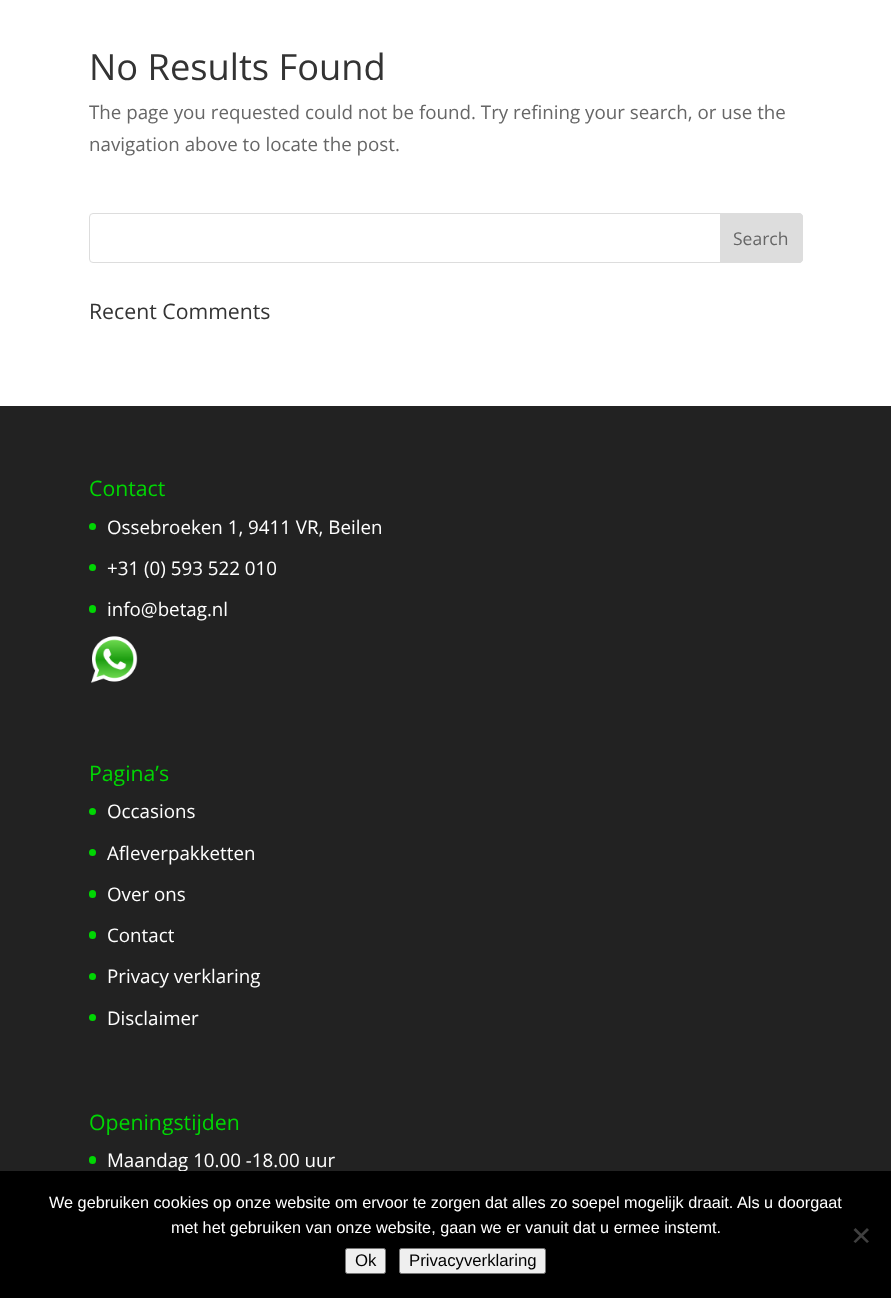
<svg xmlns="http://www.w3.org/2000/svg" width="891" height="1298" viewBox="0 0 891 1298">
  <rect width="100%" height="100%" fill="#ffffff"/>
  <text x="89" y="80" font-family="Open Sans" font-size="36.25" fill="#333333">No Results Found</text>
  <text x="89" y="119" font-family="Open Sans" font-size="18.75" fill="#666666">The page you requested could not be found. Try refining your search, or use the</text>
  <text x="89" y="151" font-family="Open Sans" font-size="18.75" fill="#666666">navigation above to locate the post.</text>
  <rect x="89.5" y="213.5" width="713" height="49" rx="3.5" fill="none" stroke="#dddddd"/>
  <path d="M720.5 213.5H799C801 213.5 802.5 215 802.5 217V259C802.5 261 801 262.5 799 262.5H720.5Z" fill="#dddddd" stroke="#dddddd"/>
  <text x="733" y="245" font-family="Open Sans" font-size="17.5" fill="#666666">Search</text>
  <text x="89" y="319" font-family="Open Sans" font-size="21.25" fill="#333333">Recent Comments</text>
  <rect x="0" y="406" width="891" height="765" fill="#222222"/>
  <text x="89" y="496" font-family="Open Sans" font-size="21.25" fill="#00d603">Contact</text>
  <circle cx="92.5" cy="526.5" r="3.5" fill="#00d603"/>
  <text x="107" y="534" font-family="Open Sans" font-size="18.75" fill="#ffffff">Ossebroeken 1, 9411 VR, Beilen</text>
  <circle cx="92.5" cy="567.5" r="3.5" fill="#00d603"/>
  <text x="107" y="575" font-family="Open Sans" font-size="18.75" fill="#ffffff">+31 (0) 593 522 010</text>
  <rect x="89" y="605" width="7" height="8" rx="3.5" fill="#00d603"/>
  <text x="107" y="616" font-family="Open Sans" font-size="18.75" fill="#ffffff">info@betag.nl</text>
  <image x="91" y="636" width="47" height="47" href="img1.png"/>
  <text x="89" y="781" font-family="Open Sans" font-size="21.25" fill="#00d603">Pagina’s</text>
  <circle cx="92.5" cy="811.5" r="3.5" fill="#00d603"/>
  <text x="107" y="818" font-family="Open Sans" font-size="18.75" fill="#ffffff">Occasions</text>
  <circle cx="92.5" cy="852.5" r="3.5" fill="#00d603"/>
  <text x="107" y="860" font-family="Open Sans" font-size="18.75" fill="#ffffff">Afleverpakketten</text>
  <rect x="89" y="890" width="7" height="8" rx="3.5" fill="#00d603"/>
  <text x="107" y="901" font-family="Open Sans" font-size="18.75" fill="#ffffff">Over ons</text>
  <rect x="89" y="931" width="7" height="8" rx="3.5" fill="#00d603"/>
  <text x="107" y="942" font-family="Open Sans" font-size="18.75" fill="#ffffff">Contact</text>
  <circle cx="92.5" cy="976.5" r="3.5" fill="#00d603"/>
  <text x="107" y="983" font-family="Open Sans" font-size="18.75" fill="#ffffff">Privacy verklaring</text>
  <circle cx="92.5" cy="1017.5" r="3.5" fill="#00d603"/>
  <text x="107" y="1025" font-family="Open Sans" font-size="18.75" fill="#ffffff">Disclaimer</text>
  <text x="89" y="1130" font-family="Open Sans" font-size="21.25" fill="#00d603">Openingstijden</text>
  <rect x="89" y="1156" width="7" height="8" rx="3.5" fill="#00d603"/>
  <text x="107" y="1167" font-family="Open Sans" font-size="18.75" fill="#ffffff">Maandag 10.00 -18.00 uur</text>
  <rect x="0" y="1171" width="891" height="127" fill="#000000"/>
  <text x="49" y="1208" font-family="Liberation Sans" font-size="16.25" fill="#ffffff">We gebruiken cookies op onze website om ervoor te zorgen dat alles zo soepel mogelijk draait. Als u doorgaat</text>
  <text x="171" y="1233" font-family="Liberation Sans" font-size="16.25" fill="#ffffff">met het gebruiken van onze website, gaan we er vanuit dat u ermee instemt.</text>
  <path d="M867 1228L869 1230L855.5 1243L853.5 1241.5Z" fill="#404040"/>
  <path d="M853.5 1230L855.5 1228L869 1241.5L867 1243Z" fill="#404040"/>
  <rect x="345.5" y="1248.5" width="40" height="25" rx="2" fill="#efefef" stroke="#767676"/>
  <text x="355" y="1266" font-family="Liberation Sans" font-size="16.75" fill="#000000">Ok</text>
  <rect x="399.5" y="1248.5" width="146" height="25" rx="2" fill="#efefef" stroke="#767676"/>
  <text x="409" y="1266" font-family="Liberation Sans" font-size="16.75" fill="#000000">Privacyverklaring</text>
</svg>
